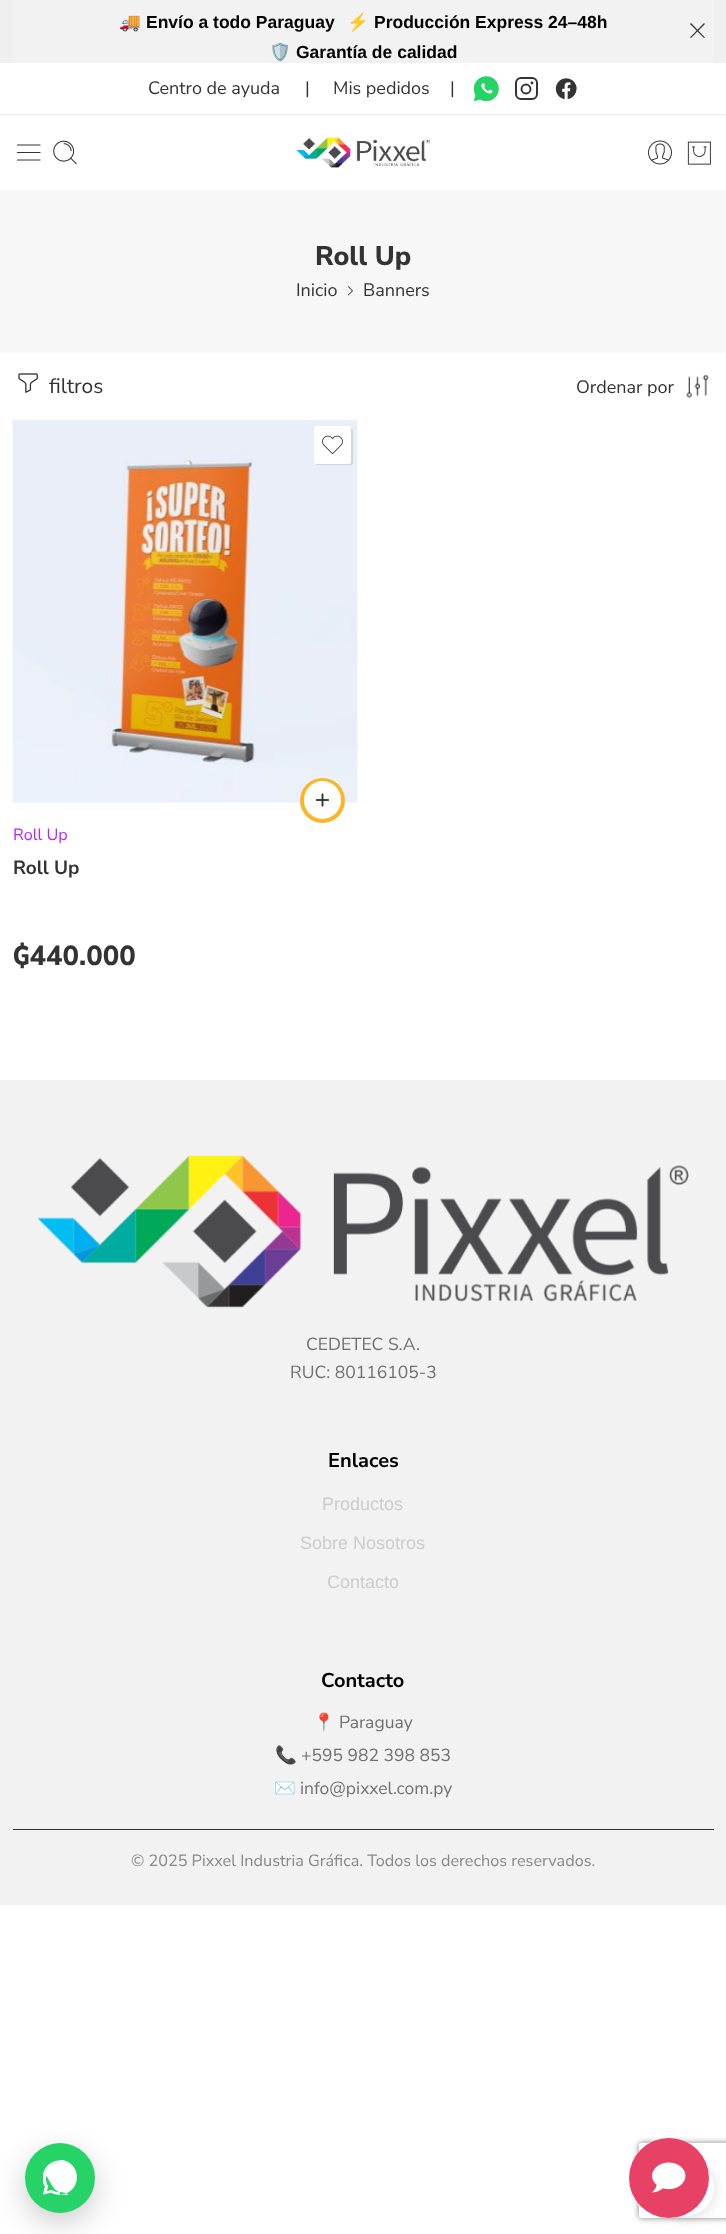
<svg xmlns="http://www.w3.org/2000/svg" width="726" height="2234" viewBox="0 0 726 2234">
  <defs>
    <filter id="blur1" x="-50%" y="-200%" width="200%" height="500%"><feGaussianBlur stdDeviation="0.5"/></filter>
    <filter id="blur2" x="-50%" y="-200%" width="200%" height="500%"><feGaussianBlur stdDeviation="15"/></filter>
    <clipPath id="clip1"><path d="M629 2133H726V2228H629ZM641.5 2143H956.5C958 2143 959 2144 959 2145.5V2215.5C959 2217 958 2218 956.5 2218H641.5C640 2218 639 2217 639 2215.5V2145.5C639 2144 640 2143 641.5 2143Z" clip-rule="evenodd"/></clipPath>
    <filter id="blur3" x="-50%" y="-200%" width="200%" height="500%"><feGaussianBlur stdDeviation="3"/></filter>
    <filter id="blur4" x="-50%" y="-200%" width="200%" height="500%"><feGaussianBlur stdDeviation="6"/></filter>
  </defs>
  <rect width="100%" height="100%" fill="#ffffff"/>
  <rect x="0" y="0" width="726" height="63" fill="#efefef"/>
  <rect x="13" y="0" width="701" height="63" fill="#f2f2f2"/>
  <text x="119" y="28" font-family="Noto Color Emoji" font-size="17.5" font-weight="bold" fill="#000000">🚚</text>
  <text x="146" y="28" font-family="Liberation Sans" font-size="17.5" font-weight="bold" fill="#000000">Envío a todo Paraguay</text>
  <text x="347" y="28" font-family="Noto Color Emoji" font-size="17.5" font-weight="bold" fill="#000000">⚡</text>
  <text x="374" y="28" font-family="Liberation Sans" font-size="17.5" font-weight="bold" fill="#000000">Producción Express 24–48h</text>
  <text x="269" y="58" font-family="Noto Color Emoji" font-size="17.5" font-weight="bold" fill="#000000">🛡️</text>
  <text x="296" y="58" font-family="Liberation Sans" font-size="17.5" font-weight="bold" fill="#000000">Garantía de calidad</text>
  <path d="M690 37.5L704 23L705 24L691 38Z" fill="#333333"/>
  <path d="M691 23L705 37.5L704 38L690 24Z" fill="#333333"/>
  <rect x="0" y="114" width="726" height="1" fill="#ececec"/>
  <text x="148" y="94" font-family="Nunito Sans" font-size="18" fill="#333333">Centro de ayuda</text>
  <text x="305" y="94" font-family="Nunito Sans" font-size="18" fill="#333333">|</text>
  <text x="333" y="94" font-family="Nunito Sans" font-size="18" fill="#333333">Mis pedidos</text>
  <text x="450" y="94" font-family="Nunito Sans" font-size="18" fill="#333333">|</text>
  <image x="474" y="76" width="25" height="25" href="img1.png"/>
  <rect x="516" y="78" width="21" height="21" rx="5" fill="none" stroke="#333333" stroke-width="2"/>
  <circle cx="526" cy="89" r="4.5" fill="none" stroke="#333333" stroke-width="1.9"/>
  <circle cx="532" cy="83" r="1.4" fill="#333333"/>
  <image x="555" y="78" width="22" height="22" href="img2.png"/>
  <path d="M17.5 152.5H40M17.5 145H40M17.5 160H40" fill="none" stroke="#333333" stroke-width="1.2" stroke-linecap="round" stroke-linejoin="round"/>
  <image x="53" y="140" width="24" height="25" href="img3.png"/>
  <image x="296" y="137" width="134" height="31" href="img4.png"/>
  <image x="648" y="140" width="24" height="25" href="img5.png"/>
  <image x="687" y="141" width="24" height="24" href="img6.png"/>
  <rect x="0" y="190" width="726" height="163" fill="#f7f7f7"/>
  <text x="315" y="265" font-family="Nunito Sans" font-size="27" font-weight="800" fill="#333333">Roll Up</text>
  <text x="296" y="296" font-family="Nunito Sans" font-size="18" fill="#333333">Inicio</text>
  <image x="347" y="286" width="6" height="10" href="img7.png"/>
  <text x="363" y="296" font-family="Nunito Sans" font-size="18" fill="#333333">Banners</text>
  <image x="18" y="373" width="20" height="20" href="img8.png"/>
  <text x="49" y="393" font-family="Nunito Sans" font-size="21" fill="#333333">filtros</text>
  <text x="576" y="393" font-family="Nunito Sans" font-size="18" fill="#333333">Ordenar por</text>
  <image x="686" y="374" width="23" height="24" href="img9.png"/>
  <image x="12" y="420" width="346" height="383" href="img10.png"/>
  <rect x="315" y="428" width="38" height="37" rx="2.5" fill="#000000" fill-opacity="0.1" filter="url(#blur1)"/>
  <rect x="314" y="426" width="37" height="38" rx="2.5" fill="#ffffff"/>
  <image x="322" y="435" width="21" height="20" href="img11.png"/>
  <circle cx="322.5" cy="800.5" r="22.5" fill="#fcb527"/>
  <rect x="304" y="781" width="37" height="38" rx="18.5" fill="#ffffff"/>
  <image x="316" y="793" width="13" height="14" href="img12.png"/>
  <text x="13" y="840" font-family="Nunito Sans" font-size="16.25" fill="#b826fc">Roll Up</text>
  <text x="13" y="874" font-family="Nunito Sans" font-size="19" font-weight="bold" fill="#333333">Roll Up</text>
  <text x="13" y="965" font-family="Nunito Sans" font-size="27.5" font-weight="800" fill="#333333">₲440.000</text>
  <rect x="0" y="1080" width="726" height="825" fill="#f2f2f2"/>
  <image x="38" y="1155" width="651" height="153" href="img13.png"/>
  <text x="306" y="1350" font-family="Nunito Sans" font-size="17.5" fill="#707070">CEDETEC S.A.</text>
  <text x="290" y="1378" font-family="Nunito Sans" font-size="17.5" fill="#707070">RUC: 80116105-3</text>
  <text x="328" y="1467" font-family="Nunito Sans" font-size="20" font-weight="bold" fill="#000000">Enlaces</text>
  <text x="322" y="1510" font-family="Liberation Sans" font-size="18" fill="#cccccc">Productos</text>
  <text x="300" y="1549" font-family="Liberation Sans" font-size="18" fill="#cccccc">Sobre Nosotros</text>
  <text x="327" y="1588" font-family="Liberation Sans" font-size="18" fill="#cccccc">Contacto</text>
  <text x="321" y="1687" font-family="Nunito Sans" font-size="20" font-weight="bold" fill="#000000">Contacto</text>
  <text x="313" y="1728" font-family="Noto Color Emoji" font-size="17.5" fill="#707070">📍</text>
  <text x="339" y="1728" font-family="Nunito Sans" font-size="17.5" fill="#707070">Paraguay</text>
  <text x="275" y="1761" font-family="Noto Color Emoji" font-size="17.5" fill="#707070">📞</text>
  <text x="301" y="1761" font-family="Nunito Sans" font-size="17.5" fill="#707070">+595 982 398 853</text>
  <text x="274" y="1794" font-family="Noto Color Emoji" font-size="17.5" fill="#707070">✉️</text>
  <text x="300" y="1794" font-family="Nunito Sans" font-size="17.5" fill="#707070">info@pixxel.com.py</text>
  <rect x="13" y="1829" width="701" height="1" fill="#333333"/>
  <text x="131" y="1866" font-family="Nunito Sans" font-size="16.25" fill="#888888">© 2025 Pixxel Industria Gráfica. Todos los derechos reservados.</text>
  <rect x="25" y="2153" width="70" height="70" rx="35" fill="#000000" fill-opacity="0.2" filter="url(#blur2)"/>
  <circle cx="60" cy="2178" r="35" fill="#25d366"/>
  <image x="43" y="2160" width="34" height="35" href="img14.png"/>
  <g clip-path="url(#clip1)">
    <rect x="639" y="2143" width="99" height="75" rx="2.5" fill="#808080" filter="url(#blur3)"/>
  </g>
  <rect x="658" y="2160" width="58" height="59" rx="29" fill="#000000" fill-opacity="0.1" filter="url(#blur4)"/>
  <circle cx="686" cy="2188" r="28" fill="#ffffff"/>
  <circle cx="669" cy="2178" r="40" fill="#e74266"/>
  <image x="652" y="2162" width="34" height="31" href="img15.png"/>
</svg>
